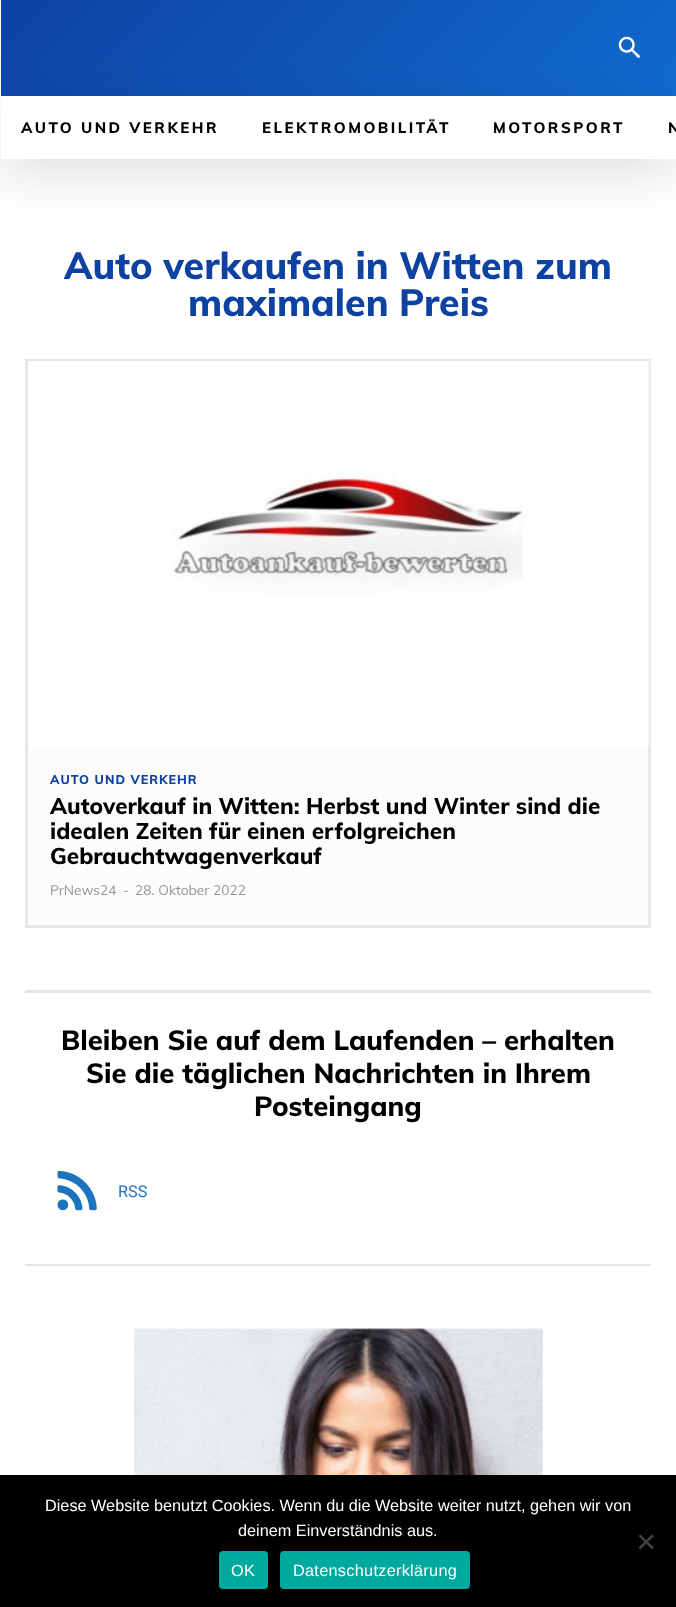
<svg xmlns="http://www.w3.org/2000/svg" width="676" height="1607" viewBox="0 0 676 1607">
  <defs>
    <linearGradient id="g1" gradientUnits="userSpaceOnUse" x1="532" y1="241" x2="146" y2="-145"><stop offset="0" stop-color="#116ace"/><stop offset="1" stop-color="#0d42a2"/></linearGradient>
    <filter id="blur1" x="-50%" y="-200%" width="200%" height="500%"><feGaussianBlur stdDeviation="25"/></filter>
  </defs>
  <rect width="100%" height="100%" fill="#ffffff"/>
  <rect x="1" y="0" width="675" height="96" fill="url(#g1)"/>
  <image x="618" y="36" width="22" height="22" href="img1.png"/>
  <rect x="0" y="111" width="676" height="63" fill="#000000" fill-opacity="0.12" filter="url(#blur1)"/>
  <rect x="1" y="96" width="675" height="63" fill="#ffffff"/>
  <text x="21" y="133" font-family="Muli" font-size="15" font-weight="800" letter-spacing="2.5" fill="#000000">AUTO UND VERKEHR</text>
  <text x="262" y="133" font-family="Muli" font-size="15" font-weight="800" letter-spacing="2.5" fill="#000000">ELEKTROMOBILITÄT</text>
  <text x="493" y="133" font-family="Muli" font-size="15" font-weight="800" letter-spacing="2.5" fill="#000000">MOTORSPORT</text>
  <text x="668" y="133" font-family="Muli" font-size="15" font-weight="800" letter-spacing="2.5" fill="#000000">N</text>
  <text x="64" y="279" font-family="Muli" font-size="37.5" font-weight="800" fill="#0d42a2">Auto verkaufen in Witten zum</text>
  <text x="188" y="316" font-family="Muli" font-size="37.5" font-weight="800" fill="#0d42a2">maximalen Preis</text>
  <rect x="28" y="746" width="620" height="179" fill="#fcfcfc"/>
  <rect x="26.5" y="360.5" width="623" height="566" fill="none" stroke="#e6e6e6" stroke-width="3"/>
  <image x="28" y="361" width="622" height="385" href="img2.png"/>
  <text x="50" y="784" font-family="Muli" font-size="12.5" font-weight="800" letter-spacing="1" fill="#0d42a2">AUTO UND VERKEHR</text>
  <text x="50" y="814" font-family="Muli" font-size="22.5" font-weight="800" fill="#000000">Autoverkauf in Witten: Herbst und Winter sind die</text>
  <text x="50" y="839" font-family="Muli" font-size="22.5" font-weight="800" fill="#000000">idealen Zeiten für einen erfolgreichen</text>
  <text x="50" y="864" font-family="Muli" font-size="22.5" font-weight="800" fill="#000000">Gebrauchtwagenverkauf</text>
  <text x="50" y="895" font-family="Muli" font-size="13.75" fill="#969696">PrNews24</text>
  <text x="123" y="895" font-family="Muli" font-size="13.75" fill="#969696">-</text>
  <text x="135" y="895" font-family="Muli" font-size="13.75" fill="#969696">28. Oktober 2022</text>
  <rect x="26.5" y="991.5" width="623" height="273" fill="none" stroke="#e6e6e6" stroke-width="3"/>
  <rect x="25" y="993" width="626" height="271" fill="#ffffff"/>
  <text x="61" y="1050" font-family="Muli" font-size="27.5" font-weight="800" fill="#000000">Bleiben Sie auf dem Laufenden – erhalten</text>
  <text x="86" y="1083" font-family="Muli" font-size="27.5" font-weight="800" fill="#000000">Sie die täglichen Nachrichten in Ihrem</text>
  <text x="254" y="1116" font-family="Muli" font-size="27.5" font-weight="800" fill="#000000">Posteingang</text>
  <image x="57" y="1170" width="40" height="41" href="img3.png"/>
  <text x="118" y="1197" font-family="Roboto" font-size="16.25" fill="#1e73be">RSS</text>
  <image x="134" y="1328" width="409" height="147" href="img4.png"/>
  <rect x="0" y="1475" width="676" height="132" fill="#000000"/>
  <text x="45" y="1511" font-family="Liberation Sans" font-size="16.25" fill="#ffffff">Diese Website benutzt Cookies. Wenn du die Website weiter nutzt, gehen wir von</text>
  <text x="238" y="1536" font-family="Liberation Sans" font-size="16.25" fill="#ffffff">deinem Einverständnis aus.</text>
  <path d="M652 1534.5L654 1536L640.5 1549.5L638.5 1547.5Z" fill="#404040"/>
  <path d="M638.5 1536L640.5 1534.5L654 1547.5L652 1549.5Z" fill="#404040"/>
  <rect x="219" y="1551" width="49" height="38" rx="4" fill="#00a99d"/>
  <text x="231" y="1576" font-family="Liberation Sans" font-size="16.25" letter-spacing="0.3" fill="#ffffff">OK</text>
  <rect x="280" y="1551" width="190" height="38" rx="4" fill="#00a99d"/>
  <text x="293" y="1576" font-family="Liberation Sans" font-size="16.25" letter-spacing="0.3" fill="#ffffff">Datenschutzerklärung</text>
</svg>
